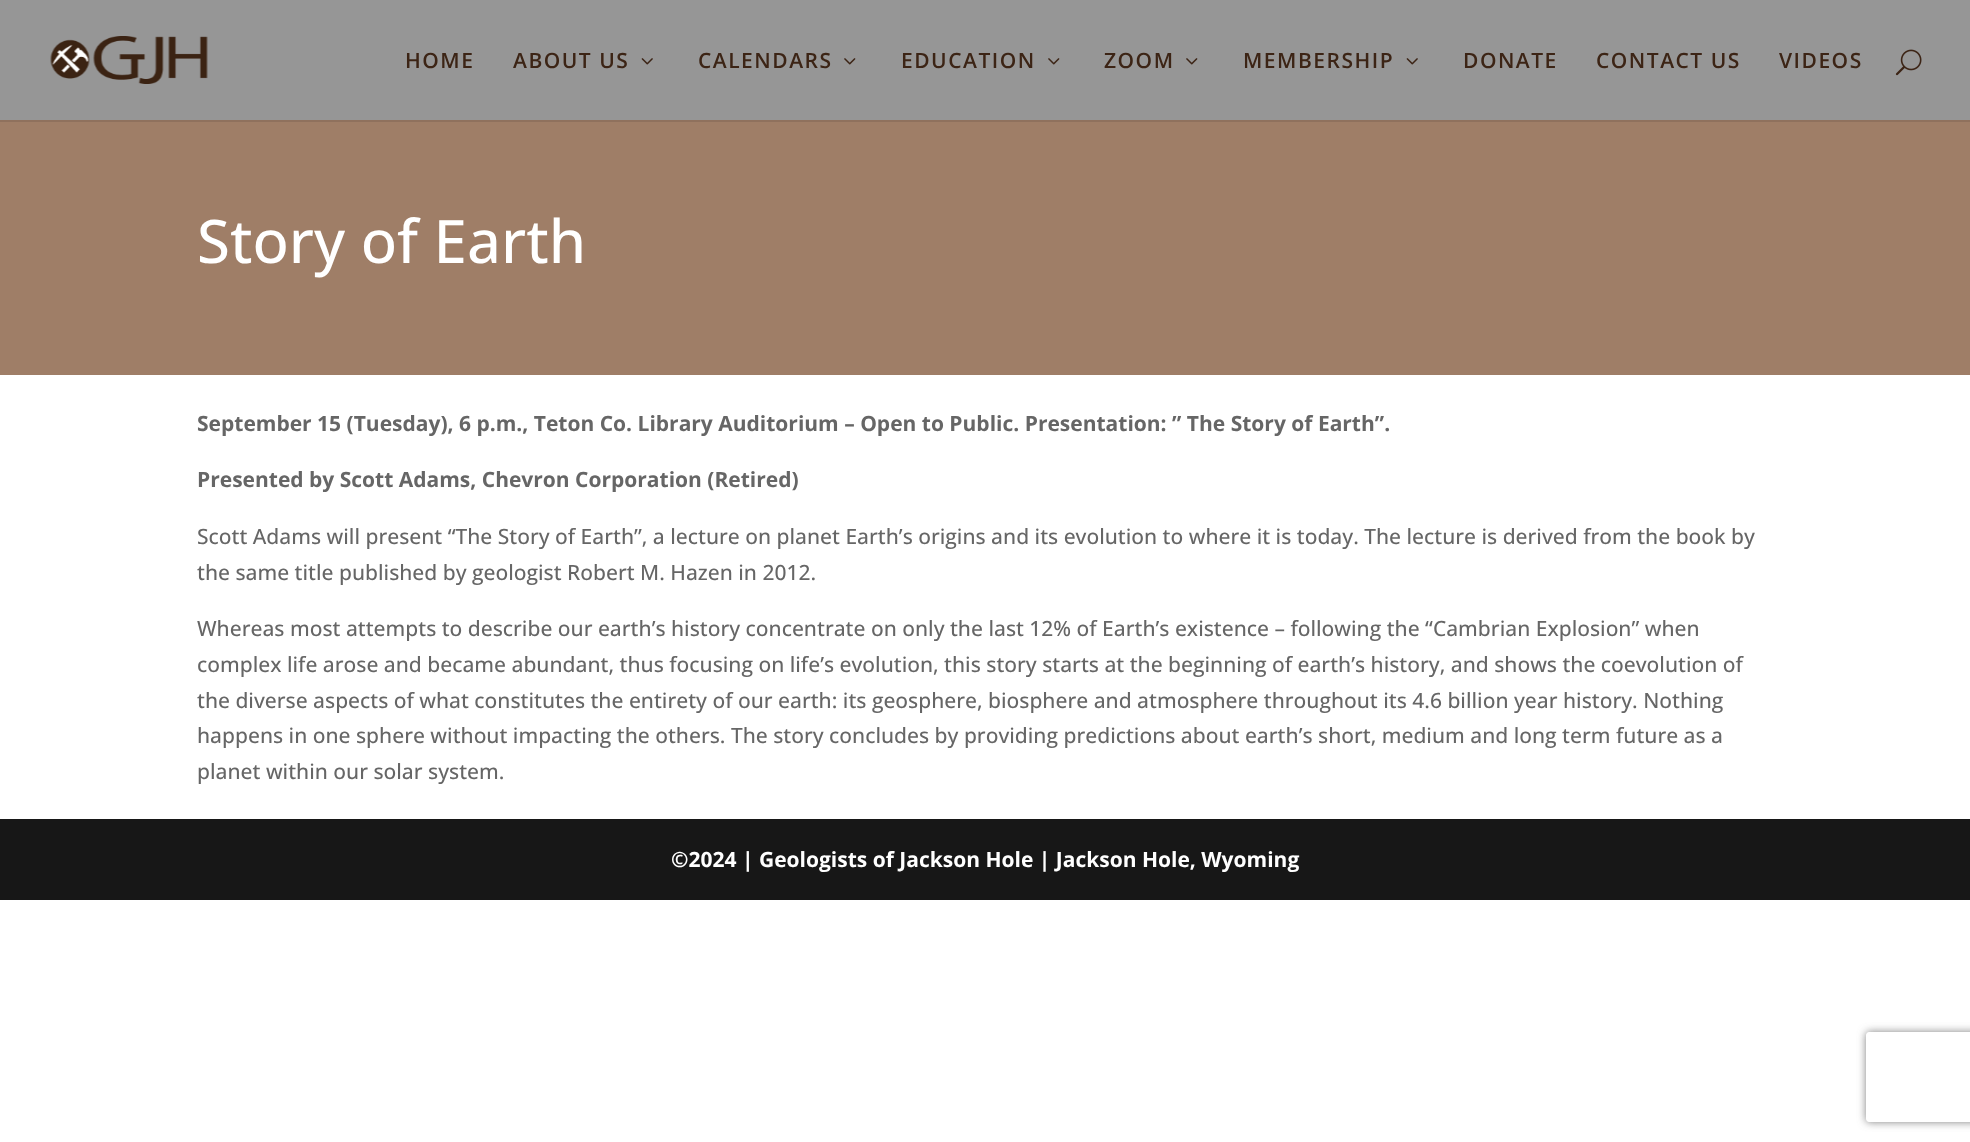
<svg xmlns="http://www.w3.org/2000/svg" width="1970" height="1142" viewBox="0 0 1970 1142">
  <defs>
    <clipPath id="clip1"><path d="M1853 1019H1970V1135H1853ZM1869 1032H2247C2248.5 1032 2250 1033.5 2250 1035V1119C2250 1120.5 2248.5 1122 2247 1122H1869C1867.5 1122 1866 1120.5 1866 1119V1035C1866 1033.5 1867.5 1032 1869 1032Z" clip-rule="evenodd"/></clipPath>
    <filter id="blur1" x="-50%" y="-200%" width="200%" height="500%"><feGaussianBlur stdDeviation="4"/></filter>
  </defs>
  <rect width="100%" height="100%" fill="#ffffff"/>
  <rect x="0" y="120" width="1970" height="2" fill="#8f715d"/>
  <rect x="0" y="0" width="1970" height="120" fill="#969696"/>
  <image x="50" y="36" width="158" height="48" href="img1.png"/>
  <text x="405" y="68" font-family="Open Sans" font-size="21" font-weight="600" letter-spacing="1.5" fill="#3c2415">HOME</text>
  <text x="513" y="68" font-family="Open Sans" font-size="21" font-weight="600" letter-spacing="1.5" fill="#3c2415">ABOUT US</text>
  <image x="641" y="58" width="12" height="7" href="img2.png"/>
  <text x="698" y="68" font-family="Open Sans" font-size="21" font-weight="600" letter-spacing="1.5" fill="#3c2415">CALENDARS</text>
  <image x="844" y="58" width="12" height="7" href="img3.png"/>
  <text x="901" y="68" font-family="Open Sans" font-size="21" font-weight="600" letter-spacing="1.5" fill="#3c2415">EDUCATION</text>
  <image x="1048" y="58" width="12" height="7" href="img3.png"/>
  <text x="1104" y="68" font-family="Open Sans" font-size="21" font-weight="600" letter-spacing="1.5" fill="#3c2415">ZOOM</text>
  <image x="1186" y="58" width="12" height="7" href="img3.png"/>
  <text x="1243" y="68" font-family="Open Sans" font-size="21" font-weight="600" letter-spacing="1.5" fill="#3c2415">MEMBERSHIP</text>
  <image x="1406" y="58" width="12" height="7" href="img2.png"/>
  <text x="1463" y="68" font-family="Open Sans" font-size="21" font-weight="600" letter-spacing="1.5" fill="#3c2415">DONATE</text>
  <text x="1596" y="68" font-family="Open Sans" font-size="21" font-weight="600" letter-spacing="1.5" fill="#3c2415">CONTACT US</text>
  <text x="1779" y="68" font-family="Open Sans" font-size="21" font-weight="600" letter-spacing="1.5" fill="#3c2415">VIDEOS</text>
  <image x="1895" y="49" width="27" height="27" href="img4.png"/>
  <rect x="0" y="122" width="1970" height="253" fill="#9f7e67"/>
  <text x="197" y="263" font-family="Open Sans" font-size="60" font-weight="500" fill="#ffffff">Story of Earth</text>
  <text x="197" y="431" font-family="Open Sans" font-size="21" font-weight="bold" fill="#666666">September 15 (Tuesday), 6 p.m., Teton Co. Library Auditorium – Open to Public. Presentation: ” The Story of Earth”.</text>
  <text x="197" y="487" font-family="Open Sans" font-size="21" font-weight="bold" fill="#666666">Presented by Scott Adams, Chevron Corporation (Retired)</text>
  <text x="197" y="544" font-family="Open Sans" font-size="21" font-weight="500" fill="#666666">Scott Adams will present “The Story of Earth”, a lecture on planet Earth’s origins and its evolution to where it is today. The lecture is derived from the book by</text>
  <text x="197" y="580" font-family="Open Sans" font-size="21" font-weight="500" fill="#666666">the same title published by geologist Robert M. Hazen in 2012.</text>
  <text x="197" y="636" font-family="Open Sans" font-size="21" font-weight="500" fill="#666666">Whereas most attempts to describe our earth’s history concentrate on only the last 12% of Earth’s existence – following the “Cambrian Explosion” when</text>
  <text x="197" y="672" font-family="Open Sans" font-size="21" font-weight="500" fill="#666666">complex life arose and became abundant, thus focusing on life’s evolution, this story starts at the beginning of earth’s history, and shows the coevolution of</text>
  <text x="197" y="708" font-family="Open Sans" font-size="21" font-weight="500" fill="#666666">the diverse aspects of what constitutes the entirety of our earth: its geosphere, biosphere and atmosphere throughout its 4.6 billion year history. Nothing</text>
  <text x="197" y="743" font-family="Open Sans" font-size="21" font-weight="500" fill="#666666">happens in one sphere without impacting the others. The story concludes by providing predictions about earth’s short, medium and long term future as a</text>
  <text x="197" y="779" font-family="Open Sans" font-size="21" font-weight="500" fill="#666666">planet within our solar system.</text>
  <rect x="0" y="819" width="1970" height="81" fill="#171717"/>
  <text x="671" y="867" font-family="Open Sans" font-size="21" font-weight="bold" fill="#ffffff">©2024 | Geologists of Jackson Hole | Jackson Hole, Wyoming</text>
  <g clip-path="url(#clip1)">
    <rect x="1866" y="1032" width="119" height="90" rx="3" fill="#808080" filter="url(#blur1)"/>
  </g>
</svg>
